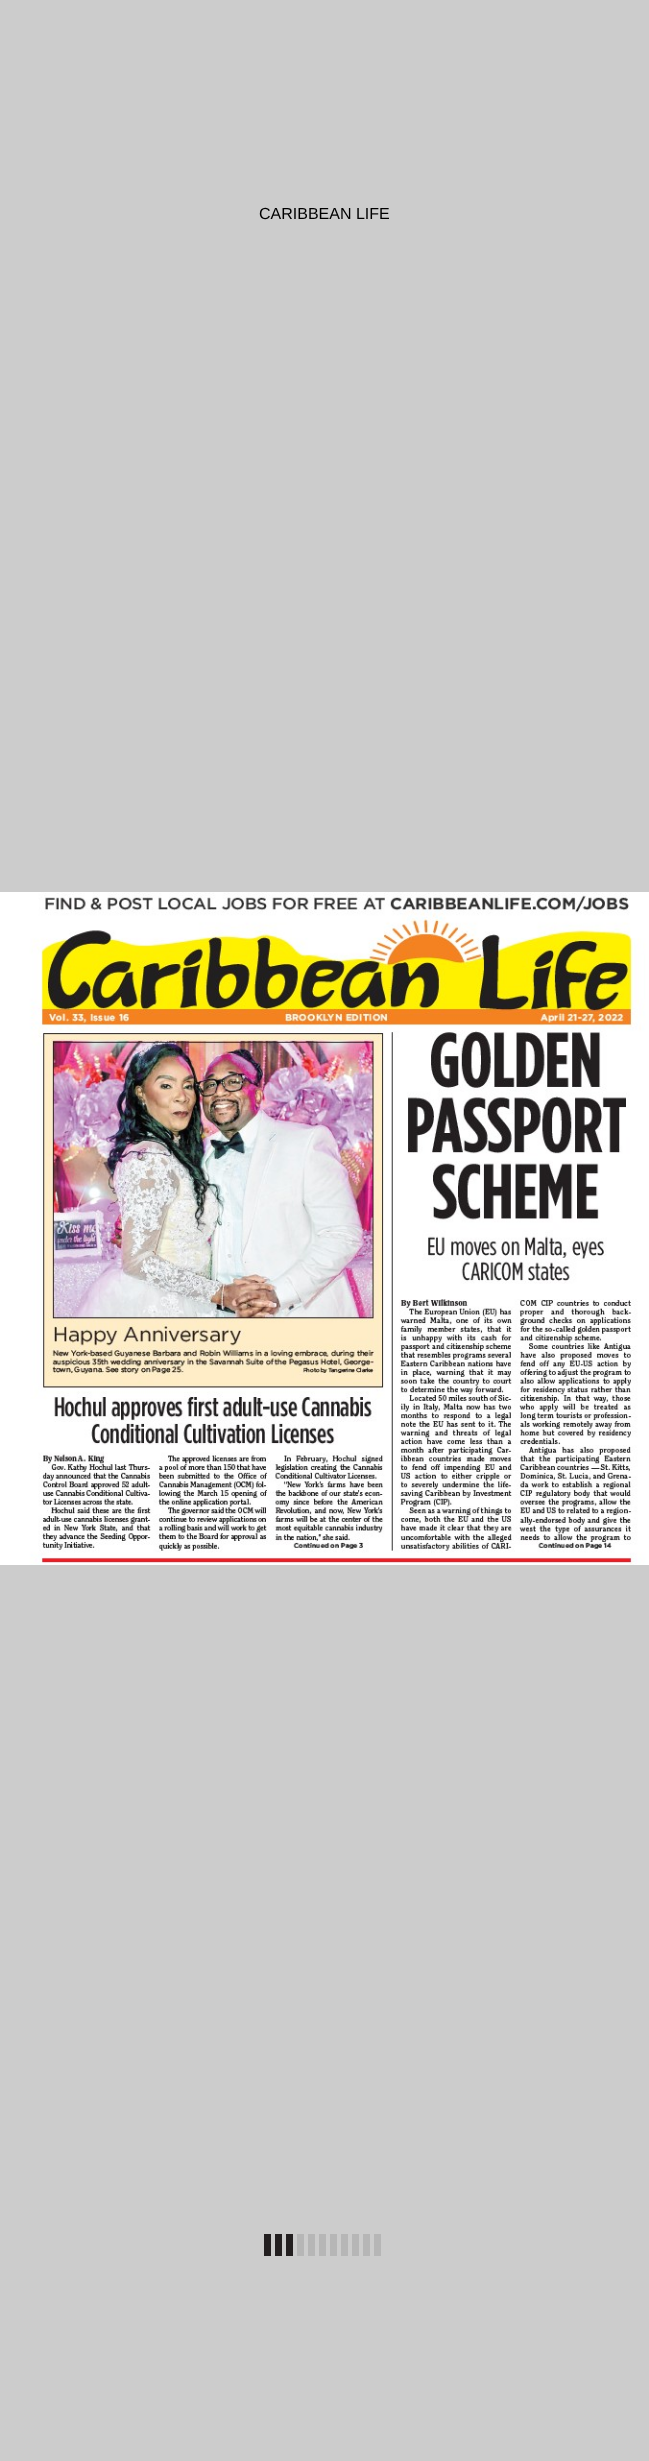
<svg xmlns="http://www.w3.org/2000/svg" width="649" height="2461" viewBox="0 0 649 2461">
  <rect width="100%" height="100%" fill="#cccccc"/>
  <text x="259" y="219" font-family="Liberation Sans" font-size="16" fill="#000000">CARIBBEAN LIFE</text>
  <image x="0" y="892" width="649" height="673" href="img1.png"/>
  <image x="264" y="2234" width="117" height="22" href="img2.png"/>
</svg>
